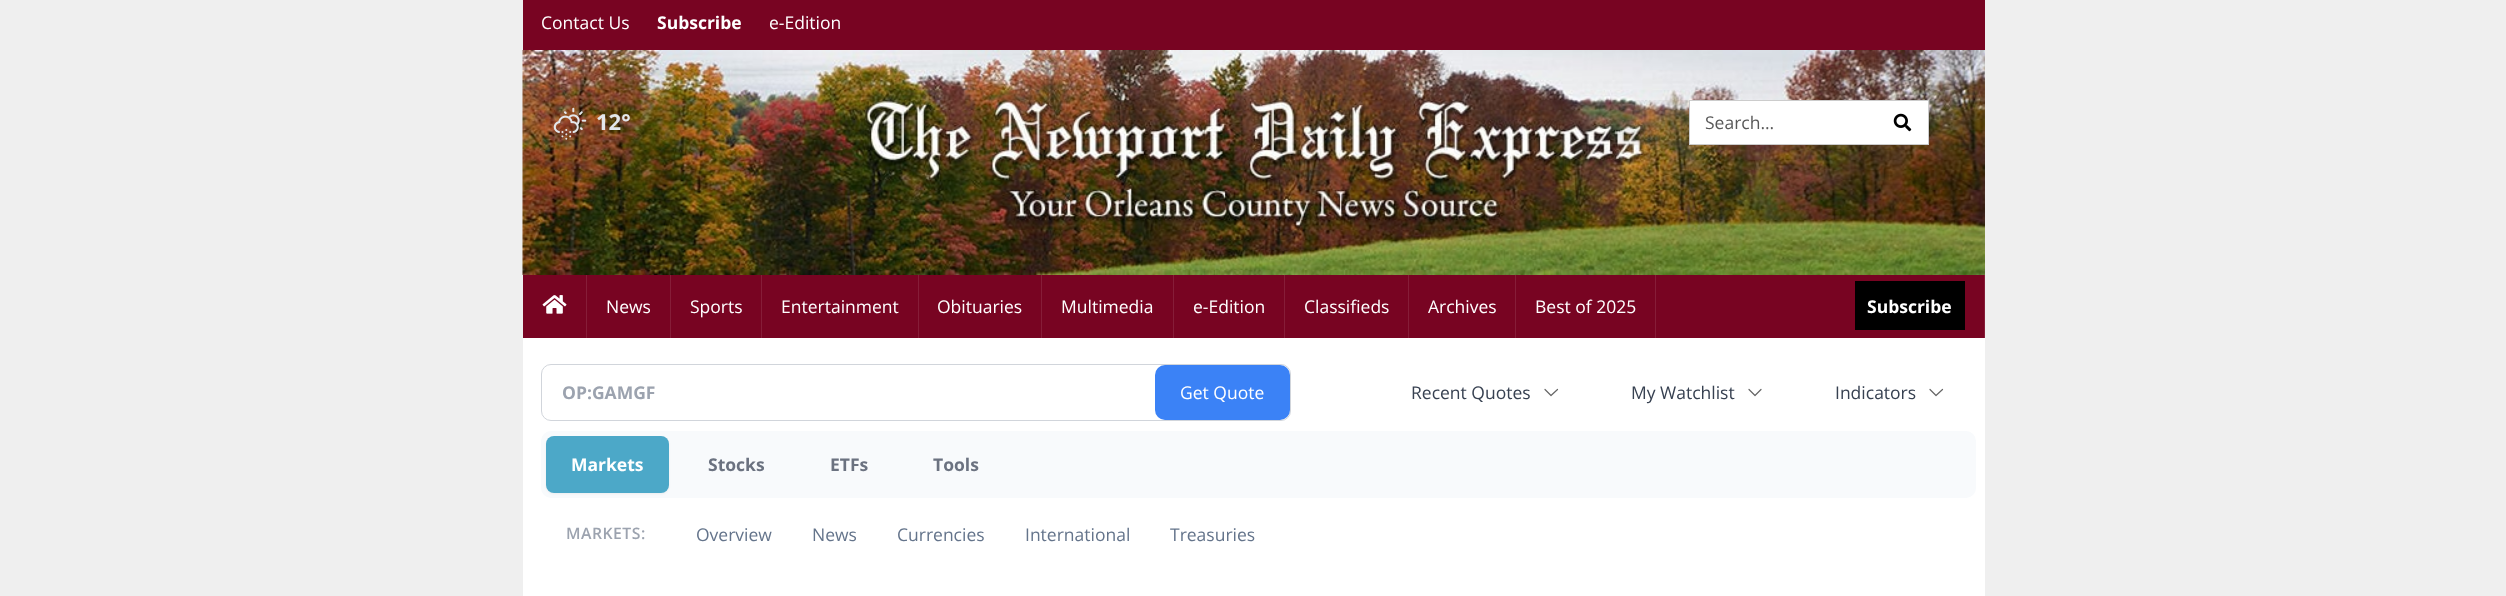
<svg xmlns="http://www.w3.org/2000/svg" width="2506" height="596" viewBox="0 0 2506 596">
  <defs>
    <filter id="blur1" x="-50%" y="-200%" width="200%" height="500%"><feGaussianBlur stdDeviation="1"/></filter>
  </defs>
  <rect width="100%" height="100%" fill="#efefef"/>
  <rect x="523" y="0" width="1462" height="50" fill="#780422"/>
  <text x="541" y="29" font-family="Open Sans" font-size="17.5" fill="#ffffff">Contact Us</text>
  <text x="657" y="29" font-family="Open Sans" font-size="17.5" font-weight="bold" fill="#ffffff">Subscribe</text>
  <text x="769" y="29" font-family="Open Sans" font-size="17.5" fill="#ffffff">e-Edition</text>
  <image x="522" y="50" width="1463" height="225" href="img1.png"/>
  <image x="553" y="107" width="34" height="33" href="img2.png"/>
  <text x="596" y="130" font-family="Open Sans" font-size="22" font-weight="bold" fill="#e3e7eb">12°</text>
  <rect x="1610" y="100" width="79" height="45" fill="#000000" fill-opacity="0.05"/>
  <rect x="1689.5" y="100.5" width="239" height="44" fill="#ffffff" stroke="#cccccc"/>
  <text x="1705" y="129" font-family="Open Sans" font-size="17.5" fill="#595959">Search...</text>
  <image x="1893" y="113" width="19" height="19" href="img3.png"/>
  <rect x="523" y="275" width="1461" height="63" fill="#780422"/>
  <rect x="586" y="275" width="1" height="63" fill="#861d38"/>
  <image x="542" y="295" width="25" height="19" href="img4.png"/>
  <rect x="670" y="275" width="1" height="63" fill="#861d38"/>
  <text x="606" y="313" font-family="Open Sans" font-size="17.5" fill="#ffffff">News</text>
  <rect x="761" y="275" width="1" height="63" fill="#861d38"/>
  <text x="690" y="313" font-family="Open Sans" font-size="17.5" fill="#ffffff">Sports</text>
  <rect x="918" y="275" width="1" height="63" fill="#861d38"/>
  <text x="781" y="313" font-family="Open Sans" font-size="17.5" fill="#ffffff">Entertainment</text>
  <rect x="1041" y="275" width="1" height="63" fill="#861d38"/>
  <text x="937" y="313" font-family="Open Sans" font-size="17.5" fill="#ffffff">Obituaries</text>
  <rect x="1173" y="275" width="1" height="63" fill="#861d38"/>
  <text x="1061" y="313" font-family="Open Sans" font-size="17.5" fill="#ffffff">Multimedia</text>
  <rect x="1284" y="275" width="1" height="63" fill="#861d38"/>
  <text x="1193" y="313" font-family="Open Sans" font-size="17.5" fill="#ffffff">e-Edition</text>
  <rect x="1408" y="275" width="1" height="63" fill="#861d38"/>
  <text x="1304" y="313" font-family="Open Sans" font-size="17.5" fill="#ffffff">Classifieds</text>
  <rect x="1515" y="275" width="1" height="63" fill="#861d38"/>
  <text x="1428" y="313" font-family="Open Sans" font-size="17.5" fill="#ffffff">Archives</text>
  <rect x="1655" y="275" width="1" height="63" fill="#861d38"/>
  <text x="1535" y="313" font-family="Open Sans" font-size="17.5" fill="#ffffff">Best of 2025</text>
  <rect x="1984" y="275" width="1" height="63" fill="#861d38"/>
  <rect x="1855" y="281" width="110" height="49" fill="#000000"/>
  <text x="1867" y="313" font-family="Open Sans" font-size="17.5" font-weight="bold" fill="#ffffff">Subscribe</text>
  <rect x="523" y="338" width="1462" height="258" fill="#ffffff"/>
  <rect x="541.5" y="364.5" width="749" height="56" rx="9.5" fill="none" stroke="#d1d5db"/>
  <text x="562" y="399" font-family="Open Sans" font-size="17.5" font-weight="bold" fill="#9ca3af">OP:GAMGF</text>
  <rect x="1155" y="365" width="135" height="55" rx="10" fill="#3b82f6"/>
  <text x="1180" y="399" font-family="Open Sans" font-size="17.5" fill="#ffffff">Get Quote</text>
  <text x="1411" y="399" font-family="Open Sans" font-size="17.5" fill="#374151">Recent Quotes</text>
  <path d="M1557.5 389.5L1551 395.5L1545 389.5" fill="none" stroke="#666666" stroke-width="1.2" stroke-linecap="round" stroke-linejoin="round"/>
  <text x="1631" y="399" font-family="Open Sans" font-size="17.5" fill="#374151">My Watchlist</text>
  <path d="M1761 389.5L1755 395.5L1749 389.5" fill="none" stroke="#666666" stroke-width="1.2" stroke-linecap="round" stroke-linejoin="round"/>
  <text x="1835" y="399" font-family="Open Sans" font-size="17.5" fill="#374151">Indicators</text>
  <path d="M1942.5 389.5L1936 395.5L1930 389.5" fill="none" stroke="#666666" stroke-width="1.2" stroke-linecap="round" stroke-linejoin="round"/>
  <rect x="541" y="431" width="1435" height="67" rx="10" fill="#f8fafc"/>
  <rect x="546" y="438" width="123" height="56" rx="8" fill="#000000" fill-opacity="0.05" filter="url(#blur1)"/>
  <rect x="546" y="436" width="123" height="57" rx="8" fill="#4ca8c8"/>
  <text x="571" y="471" font-family="Open Sans" font-size="17.5" font-weight="bold" fill="#ffffff">Markets</text>
  <text x="708" y="471" font-family="Open Sans" font-size="17.5" font-weight="bold" fill="#6b7280">Stocks</text>
  <text x="830" y="471" font-family="Open Sans" font-size="17.5" font-weight="bold" fill="#6b7280">ETFs</text>
  <text x="933" y="471" font-family="Open Sans" font-size="17.5" font-weight="bold" fill="#6b7280">Tools</text>
  <text x="566" y="539" font-family="Open Sans" font-size="15.75" font-weight="600" letter-spacing="0.5" fill="#9ca3af">MARKETS:</text>
  <text x="696" y="541" font-family="Open Sans" font-size="17.5" fill="#64748b">Overview</text>
  <text x="812" y="541" font-family="Open Sans" font-size="17.5" fill="#64748b">News</text>
  <text x="897" y="541" font-family="Open Sans" font-size="17.5" fill="#64748b">Currencies</text>
  <text x="1025" y="541" font-family="Open Sans" font-size="17.5" fill="#64748b">International</text>
  <text x="1170" y="541" font-family="Open Sans" font-size="17.5" fill="#64748b">Treasuries</text>
</svg>
